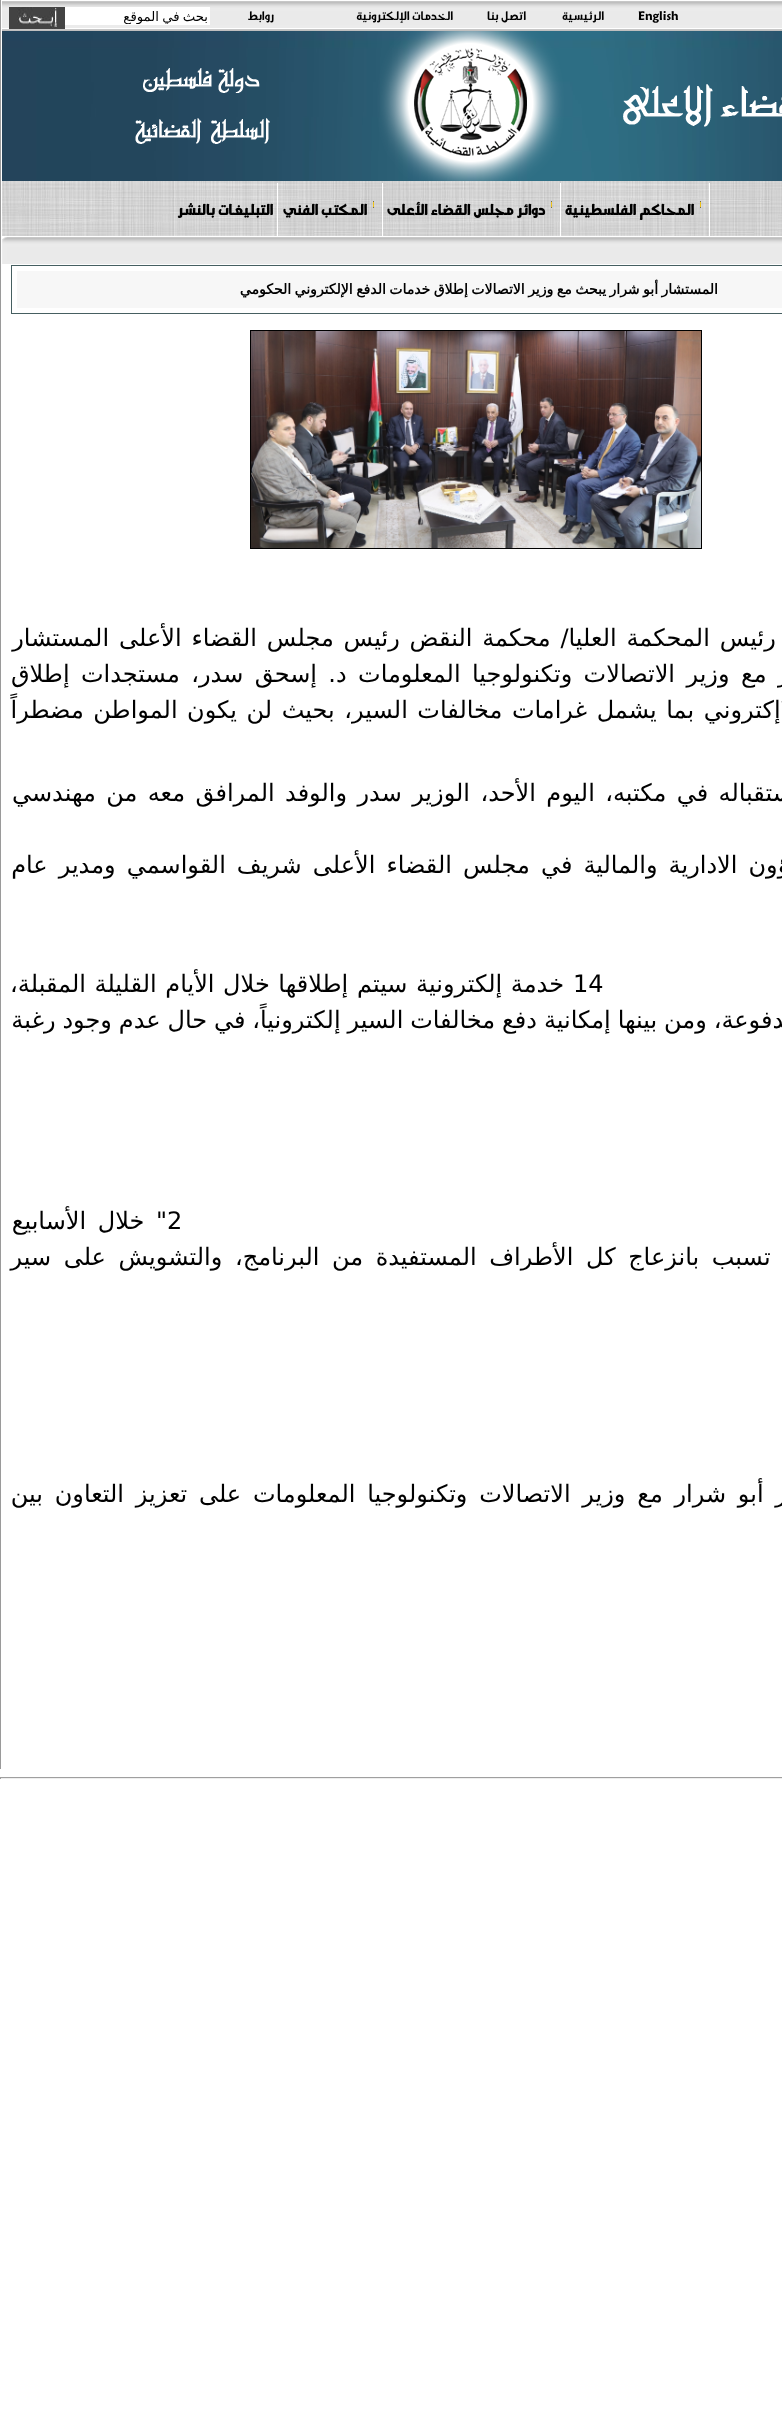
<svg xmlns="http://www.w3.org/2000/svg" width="782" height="2414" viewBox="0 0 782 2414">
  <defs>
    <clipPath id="clip1"><rect x="62" y="9" width="146" height="15"/></clipPath>
  </defs>
  <rect width="100%" height="100%" fill="#ffffff"/>
  <image x="2" y="1" width="780" height="30" href="img1.png"/>
  <text x="638" y="20" font-family="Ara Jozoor" font-size="13" fill="#000000">English</text>
  <text x="604" y="20" font-family="Ara Jozoor" font-size="13" direction="rtl" fill="#000000">الرئيسية</text>
  <text x="526" y="20" font-family="Ara Jozoor" font-size="13" direction="rtl" fill="#000000">اتصل بنا</text>
  <text x="453" y="20" font-family="Ara Jozoor" font-size="13" direction="rtl" fill="#000000">الخدمات الإلكترونية</text>
  <text x="274" y="20" font-family="Ara Jozoor" font-size="13" direction="rtl" fill="#000000">روابط</text>
  <rect x="65" y="7" width="145" height="18" fill="#ffffff"/>
  <g clip-path="url(#clip1)">
    <text x="208" y="21" word-spacing="-1" font-family="DejaVu Sans" font-size="13.25" direction="rtl" fill="#000000">بحث في الموقع</text>
  </g>
  <image x="9" y="7" width="56" height="22" href="img2.png"/>
  <image x="2" y="31" width="780" height="150" href="img3.png"/>
  <image x="2" y="181" width="780" height="1" href="img4.png"/>
  <image x="2" y="182" width="780" height="54" href="img5.png"/>
  <rect x="709" y="183" width="1" height="53" fill="#ffffff"/>
  <image x="700" y="201" width="1" height="7" href="img6.png"/>
  <text x="694" y="215" font-family="Ara Jozoor" font-size="16" font-weight="bold" direction="rtl" fill="#000000">المحاكم الفلسطينية</text>
  <rect x="560" y="183" width="1" height="53" fill="#ffffff"/>
  <image x="551" y="201" width="1" height="7" href="img6.png"/>
  <text x="545" y="215" font-family="Ara Jozoor" font-size="16" font-weight="bold" direction="rtl" fill="#000000">دوائر مجلس القضاء الأعلى</text>
  <rect x="382" y="183" width="1" height="53" fill="#ffffff"/>
  <image x="373" y="201" width="1" height="7" href="img6.png"/>
  <text x="367" y="215" font-family="Ara Jozoor" font-size="16" font-weight="bold" direction="rtl" fill="#000000">المكتب</text>
  <text x="318" y="215" font-family="Ara Jozoor" font-size="16" font-weight="bold" direction="rtl" fill="#000000">الفني</text>
  <rect x="277" y="183" width="1" height="53" fill="#ffffff"/>
  <text x="273" y="215" font-family="Ara Jozoor" font-size="16" font-weight="bold" direction="rtl" fill="#000000">التبليغات بالنشر</text>
  <image x="7" y="237" width="775" height="27" href="img7.png"/>
  <image x="2" y="237" width="5" height="27" href="img8.png"/>
  <rect x="11.5" y="265.5" width="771" height="48" fill="none" stroke="#465f61"/>
  <rect x="17" y="271" width="765" height="37" fill="#f7f7f7"/>
  <text x="718" y="294" word-spacing="-1" font-family="DejaVu Sans" font-size="14" font-weight="bold" direction="rtl" fill="#000000">المستشار أبو شرار يبحث مع وزير الاتصالات إطلاق خدمات الدفع الإلكتروني الحكومي</text>
  <rect x="250.5" y="330.5" width="451" height="218" fill="none" stroke="#000000"/>
  <image x="251" y="331" width="450" height="217" href="img9.png"/>
  <text x="941" y="646" word-spacing="2.25" font-family="DejaVu Sans" font-size="24" direction="rtl" fill="#000000">رام الله – بحث رئيس المحكمة العليا/ محكمة النقض رئيس مجلس القضاء الأعلى المستشار</text>
  <text x="941" y="682" word-spacing="3.75" font-family="DejaVu Sans" font-size="24" direction="rtl" fill="#000000">عيسى أبو شرار مع وزير الاتصالات وتكنولوجيا المعلومات د. إسحق سدر، مستجدات إطلاق</text>
  <text x="941" y="718" word-spacing="1.9" font-family="DejaVu Sans" font-size="24" direction="rtl" fill="#000000">خدمات الدفع الاإكتروني بما يشمل غرامات مخالفات السير، بحيث لن يكون المواطن مضطراً</text>
  <text x="941" y="801" word-spacing="2.75" font-family="DejaVu Sans" font-size="24" direction="rtl" fill="#000000">جاء ذلك لدى استقباله في مكتبه، اليوم الأحد، الوزير سدر والوفد المرافق معه من مهندسي</text>
  <text x="941" y="873" word-spacing="3.4" font-family="DejaVu Sans" font-size="24" direction="rtl" fill="#000000">ومدير عام الشؤون الادارية والمالية في مجلس القضاء الأعلى شريف القواسمي ومدير عام</text>
  <text x="573" y="992" font-family="DejaVu Sans" font-size="24" fill="#000000">14</text>
  <text x="564" y="992" word-spacing="1" font-family="DejaVu Sans" font-size="24" direction="rtl" fill="#000000">خدمة إلكترونية سيتم إطلاقها خلال الأيام القليلة المقبلة،</text>
  <text x="875" y="1028" word-spacing="-0.75" font-family="DejaVu Sans" font-size="24" direction="rtl" fill="#000000">خدمات مدفوعة، ومن بينها إمكانية دفع مخالفات السير إلكترونياً، في حال عدم وجود رغبة</text>
  <text x="167" y="1229" font-family="DejaVu Sans" font-size="24" fill="#000000">2</text>
  <text x="167" y="1229" word-spacing="4" font-family="DejaVu Sans" font-size="24" direction="rtl" fill="#000000">" خلال الأسابيع</text>
  <text x="941" y="1265" word-spacing="4.9" font-family="DejaVu Sans" font-size="24" direction="rtl" fill="#000000">الأخيرة، وهو ما تسبب بانزعاج كل الأطراف المستفيدة من البرنامج، والتشويش على سير</text>
  <text x="941" y="1502" word-spacing="4.1" font-family="DejaVu Sans" font-size="24" direction="rtl" fill="#000000">واتفق المستشار أبو شرار مع وزير الاتصالات وتكنولوجيا المعلومات على تعزيز التعاون بين</text>
  <rect x="0" y="0" width="1" height="1769" fill="#9a9a9a"/>
  <rect x="0" y="1777" width="782" height="1" fill="#9f9f9f"/>
  <rect x="0" y="1778" width="782" height="1" fill="#eeeeee"/>
  <rect x="0" y="1777" width="1" height="2" fill="#9f9f9f"/>
</svg>
